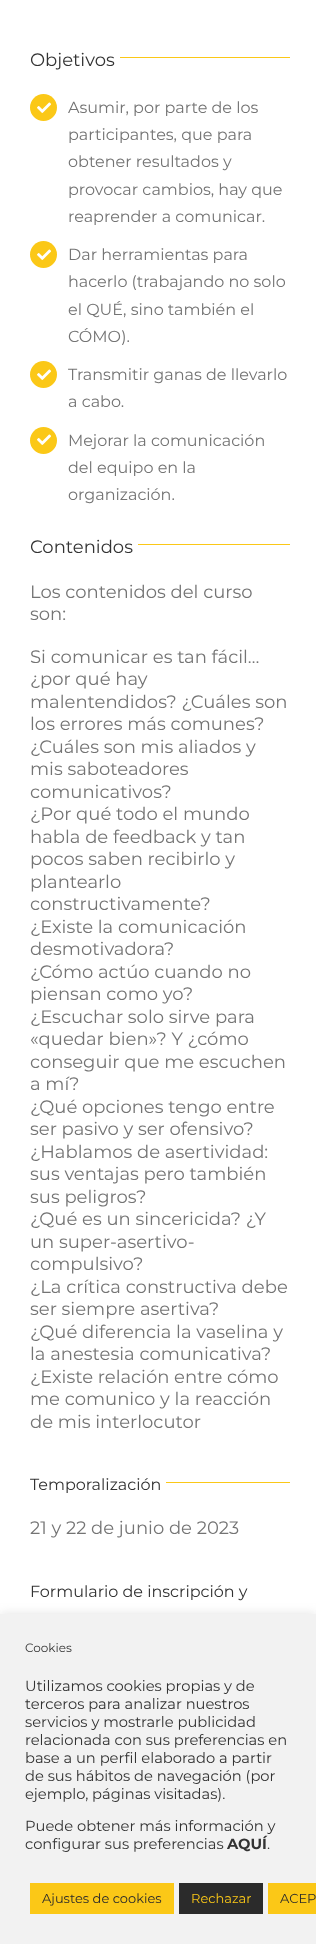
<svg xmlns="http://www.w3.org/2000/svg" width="316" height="1944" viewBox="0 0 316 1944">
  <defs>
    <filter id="blur1" x="-50%" y="-200%" width="200%" height="500%"><feGaussianBlur stdDeviation="5"/></filter>
  </defs>
  <rect width="100%" height="100%" fill="#ffffff"/>
  <text x="30" y="66" font-family="Montserrat" font-size="18" fill="#333333">Objetivos</text>
  <rect x="120" y="57" width="170" height="1" fill="#fbc817"/>
  <circle cx="43.5" cy="107.5" r="13.5" fill="#fbc817"/>
  <image x="37" y="102" width="14" height="11" href="img1.png"/>
  <text x="68" y="113" font-family="Montserrat" font-size="16" fill="#747474">Asumir, por parte de los</text>
  <text x="68" y="140" font-family="Montserrat" font-size="16" fill="#747474">participantes, que para</text>
  <text x="68" y="167" font-family="Montserrat" font-size="16" fill="#747474">obtener resultados y</text>
  <text x="68" y="195" font-family="Montserrat" font-size="16" fill="#747474">provocar cambios, hay que</text>
  <text x="68" y="222" font-family="Montserrat" font-size="16" fill="#747474">reaprender a comunicar.</text>
  <circle cx="43.5" cy="254.5" r="13.5" fill="#fbc817"/>
  <image x="37" y="249" width="14" height="11" href="img1.png"/>
  <text x="68" y="260" font-family="Montserrat" font-size="16" fill="#747474">Dar herramientas para</text>
  <text x="68" y="287" font-family="Montserrat" font-size="16" fill="#747474">hacerlo (trabajando no solo</text>
  <text x="68" y="315" font-family="Montserrat" font-size="16" fill="#747474">el QUÉ, sino también el</text>
  <text x="68" y="342" font-family="Montserrat" font-size="16" fill="#747474">CÓMO).</text>
  <circle cx="43.5" cy="374.5" r="13.5" fill="#fbc817"/>
  <image x="37" y="369" width="14" height="11" href="img1.png"/>
  <text x="68" y="380" font-family="Montserrat" font-size="16" fill="#747474">Transmitir ganas de llevarlo</text>
  <text x="68" y="407" font-family="Montserrat" font-size="16" fill="#747474">a cabo.</text>
  <circle cx="43.5" cy="440.5" r="13.5" fill="#fbc817"/>
  <image x="37" y="434" width="14" height="11" href="img1.png"/>
  <text x="68" y="446" font-family="Montserrat" font-size="16" fill="#747474">Mejorar la comunicación</text>
  <text x="68" y="473" font-family="Montserrat" font-size="16" fill="#747474">del equipo en la</text>
  <text x="68" y="500" font-family="Montserrat" font-size="16" fill="#747474">organización.</text>
  <text x="30" y="553" font-family="Montserrat" font-size="18" fill="#333333">Contenidos</text>
  <rect x="138" y="544" width="152" height="1" fill="#fbc817"/>
  <text x="30" y="598" font-family="Montserrat" font-size="18" fill="#747474">Los contenidos del curso</text>
  <text x="30" y="620" font-family="Montserrat" font-size="18" fill="#747474">son:</text>
  <text x="30" y="663" font-family="Montserrat" font-size="18" fill="#747474">Si comunicar es tan fácil…</text>
  <text x="30" y="685" font-family="Montserrat" font-size="18" fill="#747474">¿por qué hay</text>
  <text x="30" y="708" font-family="Montserrat" font-size="18" fill="#747474">malentendidos? ¿Cuáles son</text>
  <text x="30" y="730" font-family="Montserrat" font-size="18" fill="#747474">los errores más comunes?</text>
  <text x="30" y="753" font-family="Montserrat" font-size="18" fill="#747474">¿Cuáles son mis aliados y</text>
  <text x="30" y="775" font-family="Montserrat" font-size="18" fill="#747474">mis saboteadores</text>
  <text x="30" y="798" font-family="Montserrat" font-size="18" fill="#747474">comunicativos?</text>
  <text x="30" y="820" font-family="Montserrat" font-size="18" fill="#747474">¿Por qué todo el mundo</text>
  <text x="30" y="843" font-family="Montserrat" font-size="18" fill="#747474">habla de feedback y tan</text>
  <text x="30" y="865" font-family="Montserrat" font-size="18" fill="#747474">pocos saben recibirlo y</text>
  <text x="30" y="888" font-family="Montserrat" font-size="18" fill="#747474">plantearlo</text>
  <text x="30" y="910" font-family="Montserrat" font-size="18" fill="#747474">constructivamente?</text>
  <text x="30" y="933" font-family="Montserrat" font-size="18" fill="#747474">¿Existe la comunicación</text>
  <text x="30" y="955" font-family="Montserrat" font-size="18" fill="#747474">desmotivadora?</text>
  <text x="30" y="978" font-family="Montserrat" font-size="18" fill="#747474">¿Cómo actúo cuando no</text>
  <text x="30" y="1000" font-family="Montserrat" font-size="18" fill="#747474">piensan como yo?</text>
  <text x="30" y="1023" font-family="Montserrat" font-size="18" fill="#747474">¿Escuchar solo sirve para</text>
  <text x="30" y="1045" font-family="Montserrat" font-size="18" fill="#747474">«quedar bien»? Y ¿cómo</text>
  <text x="30" y="1068" font-family="Montserrat" font-size="18" fill="#747474">conseguir que me escuchen</text>
  <text x="30" y="1090" font-family="Montserrat" font-size="18" fill="#747474">a mí?</text>
  <text x="30" y="1113" font-family="Montserrat" font-size="18" fill="#747474">¿Qué opciones tengo entre</text>
  <text x="30" y="1135" font-family="Montserrat" font-size="18" fill="#747474">ser pasivo y ser ofensivo?</text>
  <text x="30" y="1158" font-family="Montserrat" font-size="18" fill="#747474">¿Hablamos de asertividad:</text>
  <text x="30" y="1180" font-family="Montserrat" font-size="18" fill="#747474">sus ventajas pero también</text>
  <text x="30" y="1203" font-family="Montserrat" font-size="18" fill="#747474">sus peligros?</text>
  <text x="30" y="1225" font-family="Montserrat" font-size="18" fill="#747474">¿Qué es un sincericida? ¿Y</text>
  <text x="30" y="1248" font-family="Montserrat" font-size="18" fill="#747474">un super-asertivo-</text>
  <text x="30" y="1270" font-family="Montserrat" font-size="18" fill="#747474">compulsivo?</text>
  <text x="30" y="1293" font-family="Montserrat" font-size="18" fill="#747474">¿La crítica constructiva debe</text>
  <text x="30" y="1315" font-family="Montserrat" font-size="18" fill="#747474">ser siempre asertiva?</text>
  <text x="30" y="1338" font-family="Montserrat" font-size="18" fill="#747474">¿Qué diferencia la vaselina y</text>
  <text x="30" y="1360" font-family="Montserrat" font-size="18" fill="#747474">la anestesia comunicativa?</text>
  <text x="30" y="1383" font-family="Montserrat" font-size="18" fill="#747474">¿Existe relación entre cómo</text>
  <text x="30" y="1405" font-family="Montserrat" font-size="18" fill="#747474">me comunico y la reacción</text>
  <text x="30" y="1428" font-family="Montserrat" font-size="18" fill="#747474">de mis interlocutor</text>
  <text x="30" y="1490" font-family="Montserrat" font-size="16" fill="#333333">Temporalización</text>
  <rect x="166" y="1482" width="124" height="1" fill="#fbc817"/>
  <text x="30" y="1534" font-family="Montserrat" font-size="18" fill="#747474">21 y 22 de junio de 2023</text>
  <text x="30" y="1597" font-family="Montserrat" font-size="16" fill="#333333">Formulario de inscripción y</text>
  <rect x="0" y="1613" width="316" height="330" fill="#acabab" fill-opacity="0.3" filter="url(#blur1)"/>
  <rect x="0" y="1614" width="316" height="330" fill="#f2f2f2"/>
  <text x="25" y="1652" font-family="Montserrat" font-size="12" fill="#333333">Cookies</text>
  <text x="25" y="1691" font-family="Montserrat" font-size="14.7" fill="#333333">Utilizamos cookies propias y de</text>
  <text x="25" y="1709" font-family="Montserrat" font-size="14.7" fill="#333333">terceros para analizar nuestros</text>
  <text x="25" y="1727" font-family="Montserrat" font-size="14.7" fill="#333333">servicios y mostrarle publicidad</text>
  <text x="25" y="1745" font-family="Montserrat" font-size="14.7" fill="#333333">relacionada con sus preferencias en</text>
  <text x="25" y="1763" font-family="Montserrat" font-size="14.7" fill="#333333">base a un perfil elaborado a partir</text>
  <text x="25" y="1781" font-family="Montserrat" font-size="14.7" fill="#333333">de sus hábitos de navegación (por</text>
  <text x="25" y="1799" font-family="Montserrat" font-size="14.7" fill="#333333">ejemplo, páginas visitadas).</text>
  <text x="25" y="1831" font-family="Montserrat" font-size="14.7" fill="#333333">Puede obtener más información y</text>
  <text x="25" y="1849" font-family="Montserrat" font-size="14.7" fill="#333333">configurar sus preferencias</text>
  <text x="227" y="1849" font-family="Montserrat" font-size="14.7" font-weight="bold" fill="#333333">AQUÍ</text>
  <text x="267" y="1849" font-family="Montserrat" font-size="14.7" fill="#333333">.</text>
  <rect x="30" y="1883" width="144" height="31" fill="#fbc817"/>
  <text x="42" y="1903" font-family="Montserrat" font-size="13" fill="#2b2b2b">Ajustes de cookies</text>
  <rect x="179" y="1883" width="84" height="31" fill="#2b2b2b"/>
  <text x="191" y="1903" font-family="Montserrat" font-size="13" fill="#fbc817">Rechazar</text>
  <rect x="268" y="1883" width="48" height="31" fill="#fbc817"/>
  <text x="280" y="1903" font-family="Montserrat" font-size="13" fill="#2b2b2b">ACEP</text>
</svg>
